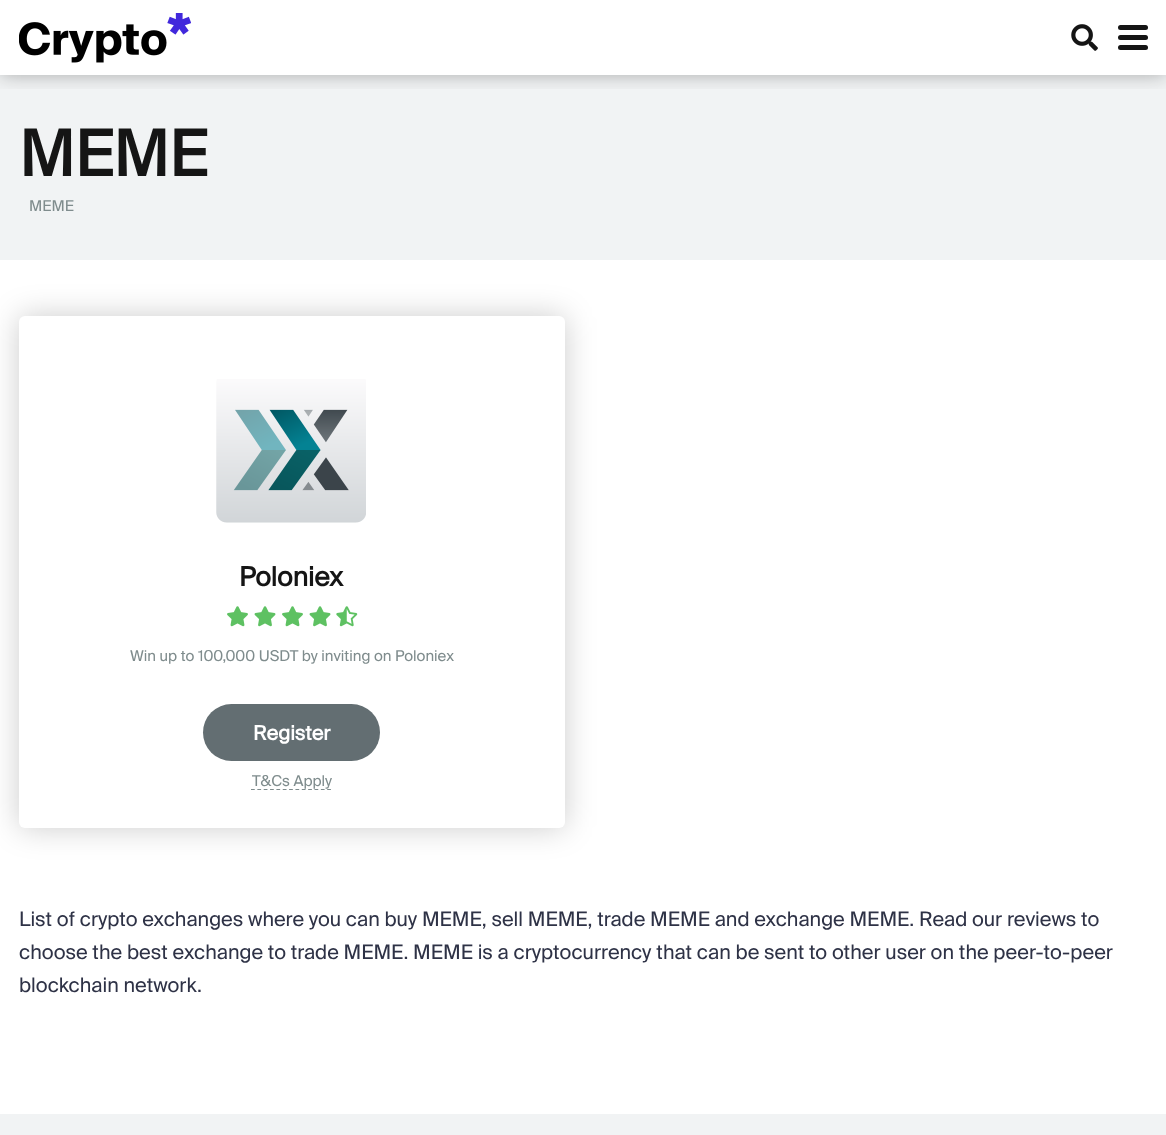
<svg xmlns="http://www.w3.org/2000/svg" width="1166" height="1135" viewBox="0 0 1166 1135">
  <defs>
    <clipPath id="clip1"><rect x="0" y="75" width="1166" height="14"/></clipPath>
    <filter id="blur1" x="-50%" y="-200%" width="200%" height="500%"><feGaussianBlur stdDeviation="9.5"/></filter>
    <filter id="blur2" x="-50%" y="-200%" width="200%" height="500%"><feGaussianBlur stdDeviation="15.5"/></filter>
  </defs>
  <rect width="100%" height="100%" fill="#ffffff"/>
  <rect x="0" y="75" width="1166" height="185" fill="#f1f3f4"/>
  <g clip-path="url(#clip1)">
    <rect x="0" y="0" width="1166" height="75" fill="#000000" fill-opacity="0.3" filter="url(#blur1)"/>
  </g>
  <image x="19" y="13" width="172" height="50" href="img1.png"/>
  <image x="1071" y="24" width="27" height="27" href="img2.png"/>
  <rect x="1118" y="25" width="30" height="5" rx="2.5" fill="#151515"/>
  <rect x="1118" y="35" width="30" height="5" rx="2.5" fill="#151515"/>
  <rect x="1118" y="45" width="30" height="5" rx="2.5" fill="#151515"/>
  <text x="19" y="176" font-family="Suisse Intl" font-size="63" font-weight="bold" fill="#151515">MEME</text>
  <text x="29" y="211" font-family="Suisse Intl" font-size="15" fill="#7f8c8d">MEME</text>
  <rect x="19" y="316" width="546" height="512" rx="6" fill="#000000" fill-opacity="0.2" filter="url(#blur2)"/>
  <rect x="19" y="316" width="546" height="512" rx="6" fill="#ffffff"/>
  <image x="216" y="379" width="150" height="144" href="img3.png"/>
  <text x="239" y="586" font-family="Suisse Intl" font-size="26.5" font-weight="bold" fill="#151515">Poloniex</text>
  <image x="227" y="606" width="21" height="21" href="img4.png"/>
  <image x="254" y="606" width="22" height="21" href="img5.png"/>
  <image x="282" y="606" width="21" height="21" href="img4.png"/>
  <image x="309" y="606" width="22" height="21" href="img5.png"/>
  <image x="336" y="606" width="22" height="21" href="img6.png"/>
  <text x="130" y="661" font-family="Suisse Intl" font-size="15" fill="#7f8c8d">Win up to 100,000 USDT by inviting on Poloniex</text>
  <rect x="203" y="704" width="177" height="57" rx="28.5" fill="#636e72"/>
  <text x="253" y="740" font-family="Suisse Intl" font-size="20" font-weight="bold" fill="#ffffff">Register</text>
  <path d="M251 789.5H331" fill="none" stroke="#7f8c8d" stroke-width="1.2" stroke-dasharray="3.75 2.6"/>
  <text x="252" y="786" font-family="Suisse Intl" font-size="15" fill="#7f8c8d">T&amp;Cs Apply</text>
  <text x="19" y="926" font-family="Suisse Intl" font-size="20" fill="#2e3246">List of crypto exchanges where you can buy MEME, sell MEME, trade MEME and exchange MEME. Read our reviews to</text>
  <text x="19" y="959" font-family="Suisse Intl" font-size="20" fill="#2e3246">choose the best exchange to trade MEME. MEME is a cryptocurrency that can be sent to other user on the peer-to-peer</text>
  <text x="19" y="992" font-family="Suisse Intl" font-size="20" fill="#2e3246">blockchain network.</text>
  <rect x="0" y="1114" width="1166" height="21" fill="#f1f3f4"/>
</svg>
